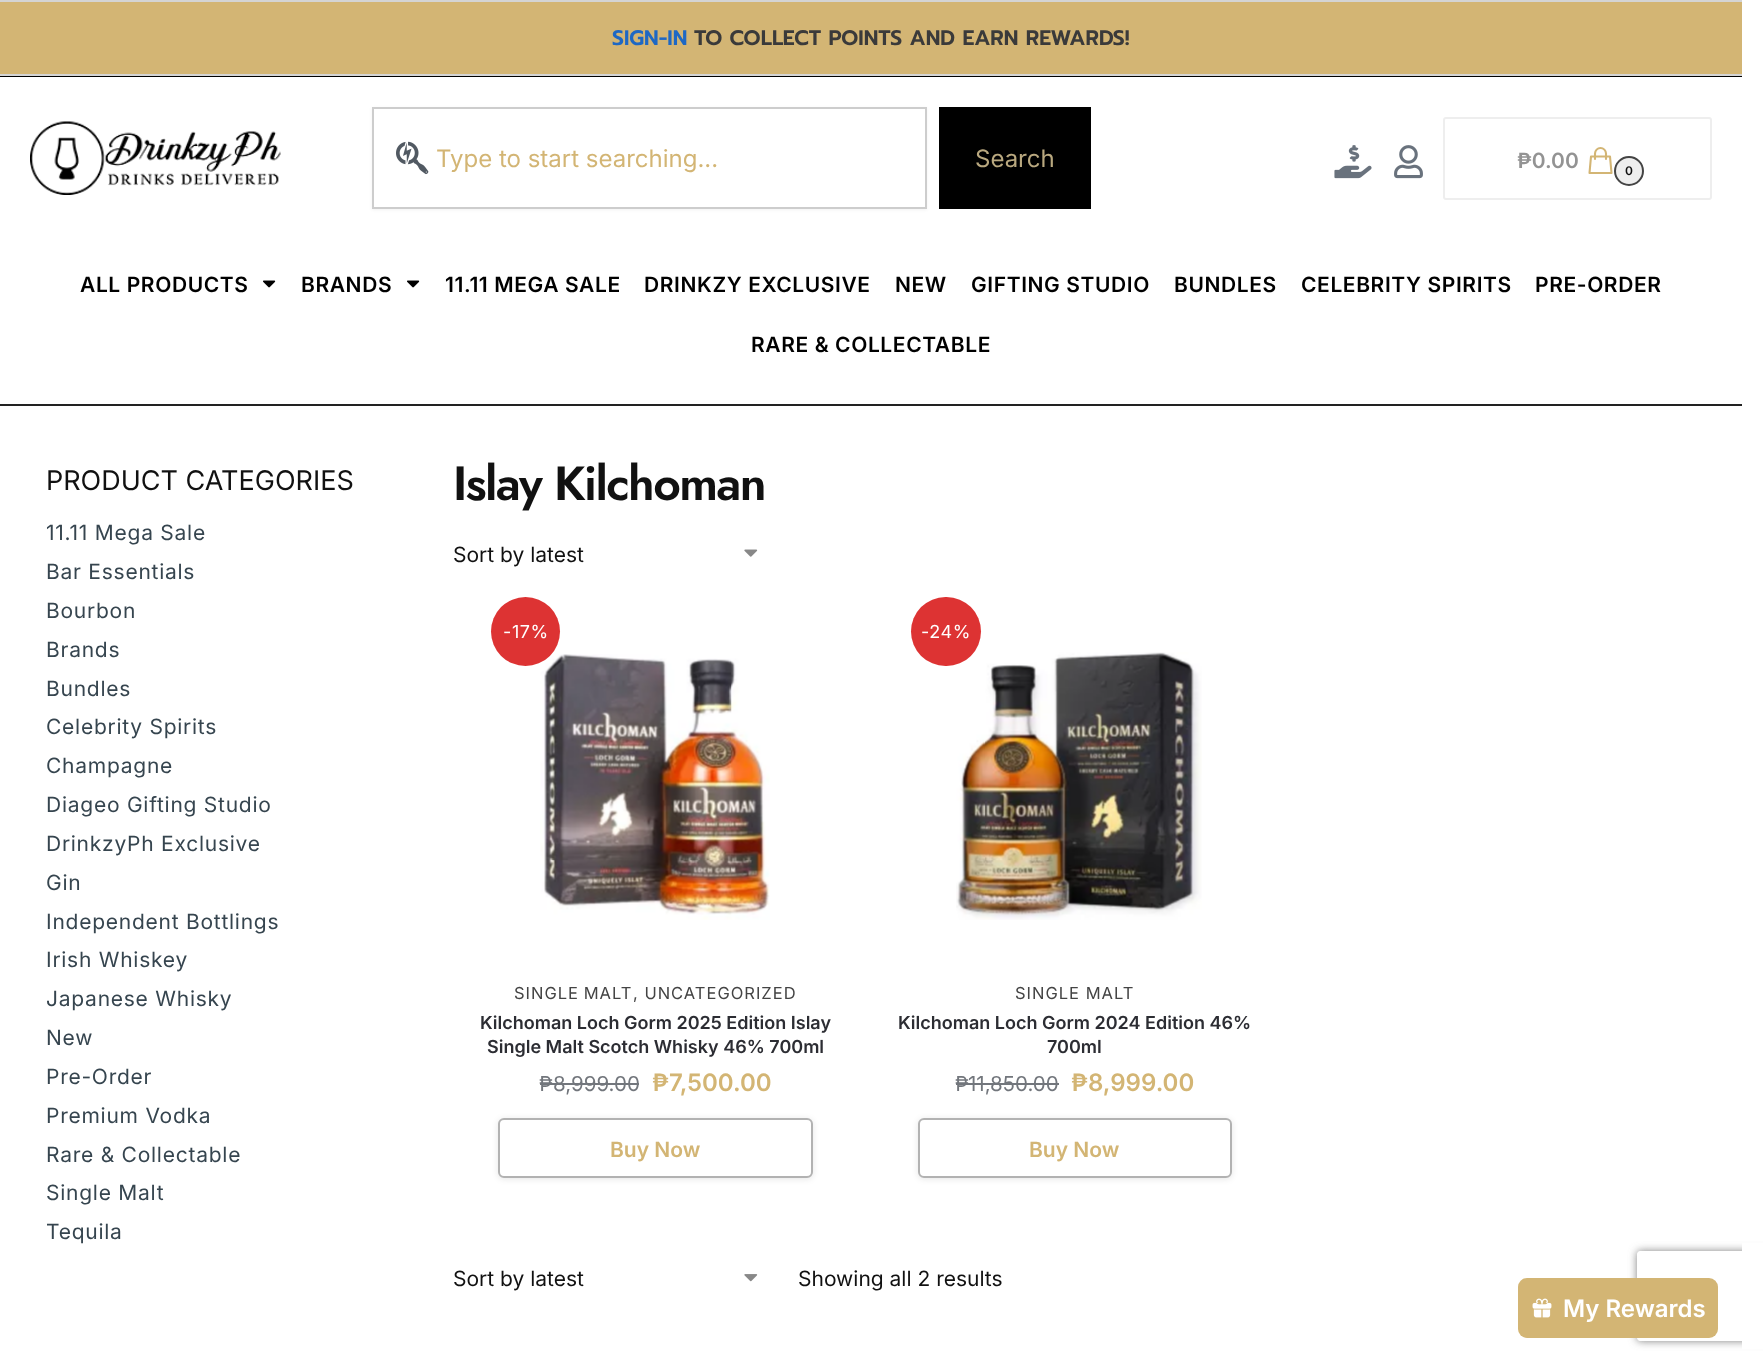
<svg xmlns="http://www.w3.org/2000/svg" width="1763" height="1361" viewBox="0 0 1763 1361">
  <defs>
    <filter id="blur1" x="-50%" y="-200%" width="200%" height="500%"><feGaussianBlur stdDeviation="1.5"/></filter>
    <filter id="blur2" x="-50%" y="-200%" width="200%" height="500%"><feGaussianBlur stdDeviation="3"/></filter>
    <clipPath id="clip1"><path d="M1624 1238H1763V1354H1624ZM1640 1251H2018C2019.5 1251 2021 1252.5 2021 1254V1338C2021 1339.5 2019.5 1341 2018 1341H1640C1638.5 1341 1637 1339.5 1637 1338V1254C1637 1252.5 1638.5 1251 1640 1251Z" clip-rule="evenodd"/></clipPath>
    <filter id="blur3" x="-50%" y="-200%" width="200%" height="500%"><feGaussianBlur stdDeviation="4"/></filter>
  </defs>
  <rect width="100%" height="100%" fill="#ffffff"/>
  <rect x="0" y="76" width="1742" height="1" fill="#000000"/>
  <rect x="0" y="2" width="1742" height="72" fill="#d3b574"/>
  <rect x="0" y="0" width="1742" height="2" fill="#d4d4d4"/>
  <rect x="0" y="74" width="1742" height="2" fill="#d4d4d4"/>
  <text x="612" y="45" font-family="Prompt" font-size="21" font-weight="600" fill="#1e68c4">SIGN-IN</text>
  <text x="694" y="45" font-family="Prompt" font-size="21" font-weight="600" fill="#3a3a3a">TO COLLECT POINTS AND EARN REWARDS!</text>
  <image x="30" y="121" width="251" height="74" href="img1.png"/>
  <rect x="372" y="108" width="555" height="102" fill="#000000" fill-opacity="0.05" filter="url(#blur1)"/>
  <rect x="373" y="108" width="553" height="100" fill="#ffffff" stroke="#cdcdcd" stroke-width="2"/>
  <image x="396" y="141" width="33" height="34" href="img2.png"/>
  <text x="436" y="167" font-family="Inter" font-size="24" fill="#d3b574">Type to start searching...</text>
  <rect x="939" y="107" width="152" height="102" fill="#000000"/>
  <text x="975" y="167" font-family="Inter" font-size="24" fill="#b9a87f">Search</text>
  <image x="1334" y="145" width="38" height="34" href="img3.png"/>
  <image x="1394" y="145" width="29" height="34" href="img4.png"/>
  <rect x="1444" y="118" width="267" height="81" rx="2" fill="none" stroke="#eeeeee" stroke-width="2"/>
  <text x="1517" y="168" font-family="Inter" font-size="21" font-weight="600" fill="#939393">₱0.00</text>
  <path d="M1606 159V153.5C1606 150.5 1603.5 148 1600.5 148C1597.5 148 1595 150.5 1595 153.5V159M1591 156.5H1610L1611.5 173H1589.5Z" fill="none" stroke="#d3b574" stroke-width="2.1" stroke-linecap="round" stroke-linejoin="round"/>
  <circle cx="1629" cy="171" r="14" fill="#eeeeee" stroke="#444444" stroke-width="2"/>
  <text x="1625" y="175" font-family="Inter" font-size="12" font-weight="600" fill="#111111">0</text>
  <text x="80" y="292" font-family="Inter" font-size="21" font-weight="600" letter-spacing="0.6" fill="#000000">ALL PRODUCTS</text>
  <image x="263" y="280" width="13" height="8" href="img5.png"/>
  <text x="301" y="292" font-family="Inter" font-size="21" font-weight="600" letter-spacing="0.6" fill="#000000">BRANDS</text>
  <image x="407" y="280" width="13" height="8" href="img5.png"/>
  <text x="445" y="292" font-family="Inter" font-size="21" font-weight="600" letter-spacing="0.6" fill="#000000">11.11 MEGA SALE</text>
  <text x="644" y="292" font-family="Inter" font-size="21" font-weight="600" letter-spacing="0.6" fill="#000000">DRINKZY EXCLUSIVE</text>
  <text x="895" y="292" font-family="Inter" font-size="21" font-weight="600" letter-spacing="0.6" fill="#000000">NEW</text>
  <text x="971" y="292" font-family="Inter" font-size="21" font-weight="600" letter-spacing="0.6" fill="#000000">GIFTING STUDIO</text>
  <text x="1174" y="292" font-family="Inter" font-size="21" font-weight="600" letter-spacing="0.6" fill="#000000">BUNDLES</text>
  <text x="1301" y="292" font-family="Inter" font-size="21" font-weight="600" letter-spacing="0.6" fill="#000000">CELEBRITY SPIRITS</text>
  <text x="1535" y="292" font-family="Inter" font-size="21" font-weight="600" letter-spacing="0.6" fill="#000000">PRE-ORDER</text>
  <text x="751" y="352" font-family="Inter" font-size="21" font-weight="600" letter-spacing="0.6" fill="#000000">RARE &amp; COLLECTABLE</text>
  <rect x="0" y="404" width="1742" height="2" fill="#222222"/>
  <text x="46" y="490" font-family="Inter" font-size="27" fill="#111111">PRODUCT CATEGORIES</text>
  <text x="46" y="540" font-family="Inter" font-size="21" letter-spacing="0.75" fill="#36454f">11.11 Mega Sale</text>
  <text x="46" y="579" font-family="Inter" font-size="21" letter-spacing="0.75" fill="#36454f">Bar Essentials</text>
  <text x="46" y="618" font-family="Inter" font-size="21" letter-spacing="0.75" fill="#36454f">Bourbon</text>
  <text x="46" y="657" font-family="Inter" font-size="21" letter-spacing="0.75" fill="#36454f">Brands</text>
  <text x="46" y="696" font-family="Inter" font-size="21" letter-spacing="0.75" fill="#36454f">Bundles</text>
  <text x="46" y="734" font-family="Inter" font-size="21" letter-spacing="0.75" fill="#36454f">Celebrity Spirits</text>
  <text x="46" y="773" font-family="Inter" font-size="21" letter-spacing="0.75" fill="#36454f">Champagne</text>
  <text x="46" y="812" font-family="Inter" font-size="21" letter-spacing="0.75" fill="#36454f">Diageo Gifting Studio</text>
  <text x="46" y="851" font-family="Inter" font-size="21" letter-spacing="0.75" fill="#36454f">DrinkzyPh Exclusive</text>
  <text x="46" y="890" font-family="Inter" font-size="21" letter-spacing="0.75" fill="#36454f">Gin</text>
  <text x="46" y="929" font-family="Inter" font-size="21" letter-spacing="0.75" fill="#36454f">Independent Bottlings</text>
  <text x="46" y="967" font-family="Inter" font-size="21" letter-spacing="0.75" fill="#36454f">Irish Whiskey</text>
  <text x="46" y="1006" font-family="Inter" font-size="21" letter-spacing="0.75" fill="#36454f">Japanese Whisky</text>
  <text x="46" y="1045" font-family="Inter" font-size="21" letter-spacing="0.75" fill="#36454f">New</text>
  <text x="46" y="1084" font-family="Inter" font-size="21" letter-spacing="0.75" fill="#36454f">Pre-Order</text>
  <text x="46" y="1123" font-family="Inter" font-size="21" letter-spacing="0.75" fill="#36454f">Premium Vodka</text>
  <text x="46" y="1162" font-family="Inter" font-size="21" letter-spacing="0.75" fill="#36454f">Rare &amp; Collectable</text>
  <text x="46" y="1200" font-family="Inter" font-size="21" letter-spacing="0.75" fill="#36454f">Single Malt</text>
  <text x="46" y="1239" font-family="Inter" font-size="21" letter-spacing="0.75" fill="#36454f">Tequila</text>
  <text x="453" y="500" font-family="Jost" font-size="48" font-weight="600" letter-spacing="-1.6" fill="#111111">Islay Kilchoman</text>
  <image x="744" y="549" width="14" height="8" href="img6.png"/>
  <text x="453" y="562" font-family="Inter" font-size="21" fill="#111111">Sort by latest</text>
  <image x="540" y="654" width="230" height="266" href="img7.png"/>
  <circle cx="525.5" cy="631.5" r="34.5" fill="#dd3333"/>
  <text x="503" y="638" font-family="Inter" font-size="18" letter-spacing="0.6" fill="#ffffff">-17%</text>
  <text x="514" y="999" word-spacing="-1" font-family="Inter" font-size="16.5" letter-spacing="1" fill="#444444">SINGLE MALT</text>
  <text x="633" y="999" font-family="Inter" font-size="16.5" letter-spacing="1" fill="#444444">, UNCATEGORIZED</text>
  <text x="480" y="1029" font-family="Inter" font-size="18" font-weight="600" fill="#2c2d33">Kilchoman Loch Gorm 2025 Edition Islay</text>
  <text x="487" y="1053" font-family="Inter" font-size="18" font-weight="600" fill="#2c2d33">Single Malt Scotch Whisky 46% 700ml</text>
  <text x="539" y="1091" font-family="Inter" font-size="20.5" fill="#72767c">₱</text>
  <rect x="540" y="1083" width="14" height="2" fill="#72767c"/>
  <text x="553" y="1091" font-family="Inter" font-size="20.5" fill="#72767c">8,999.00</text>
  <rect x="554" y="1083" width="85" height="2" fill="#72767c"/>
  <text x="652" y="1091" font-family="Inter" font-size="24" font-weight="600" fill="#d3b574">₱</text>
  <text x="669" y="1091" font-family="Inter" font-size="24" font-weight="600" fill="#d3b574">7,500.00</text>
  <rect x="498" y="1119" width="315" height="60" rx="6" fill="#000000" fill-opacity="0.1" filter="url(#blur2)"/>
  <rect x="499" y="1119" width="313" height="58" rx="5" fill="#ffffff" stroke="#b2b2b2" stroke-width="2"/>
  <text x="610" y="1157" font-family="Inter" font-size="21" font-weight="600" fill="#d3b574">Buy Now</text>
  <image x="956" y="652" width="246" height="268" href="img8.png"/>
  <rect x="911" y="597" width="70" height="69" rx="34.5" fill="#dd3333"/>
  <text x="921" y="638" font-family="Inter" font-size="18" letter-spacing="0.6" fill="#ffffff">-24%</text>
  <text x="1015" y="999" font-family="Inter" font-size="16.5" letter-spacing="1" fill="#444444">SINGLE MALT</text>
  <text x="898" y="1029" font-family="Inter" font-size="18" font-weight="600" fill="#2c2d33">Kilchoman Loch Gorm 2024 Edition 46%</text>
  <text x="1047" y="1053" font-family="Inter" font-size="18" font-weight="600" fill="#2c2d33">700ml</text>
  <text x="955" y="1091" font-family="Inter" font-size="20.5" fill="#72767c">₱</text>
  <rect x="956" y="1083" width="13" height="2" fill="#72767c"/>
  <text x="968" y="1091" font-family="Inter" font-size="20.5" fill="#72767c">11,850.00</text>
  <rect x="969" y="1083" width="90" height="2" fill="#72767c"/>
  <text x="1071" y="1091" font-family="Inter" font-size="24" font-weight="600" fill="#d3b574">₱</text>
  <text x="1088" y="1091" font-family="Inter" font-size="24" font-weight="600" fill="#d3b574">8,999.00</text>
  <rect x="918" y="1119" width="314" height="60" rx="6" fill="#000000" fill-opacity="0.1" filter="url(#blur2)"/>
  <rect x="918" y="1118" width="314" height="60" rx="6" fill="#ffffff"/>
  <rect x="919" y="1119" width="312" height="58" rx="5" fill="none" stroke="#000000" stroke-opacity="0.3" stroke-width="2"/>
  <text x="1029" y="1157" font-family="Inter" font-size="21" font-weight="600" fill="#d3b574">Buy Now</text>
  <image x="744" y="1274" width="14" height="8" href="img9.png"/>
  <text x="453" y="1286" font-family="Inter" font-size="21" fill="#111111">Sort by latest</text>
  <text x="798" y="1286" font-family="Inter" font-size="21" fill="#111111">Showing all 2 results</text>
  <g clip-path="url(#clip1)">
    <rect x="1637" y="1251" width="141" height="90" rx="3" fill="#808080" filter="url(#blur3)"/>
  </g>
  <rect x="1742" y="1243" width="21" height="106" fill="#ffffff"/>
  <rect x="1518" y="1278" width="200" height="60" rx="9" fill="#d3b574"/>
  <image x="1532" y="1298" width="20" height="20" href="img10.png"/>
  <text x="1563" y="1317" font-family="Inter" font-size="24" font-weight="600" fill="#ffffff">My Rewards</text>
</svg>
